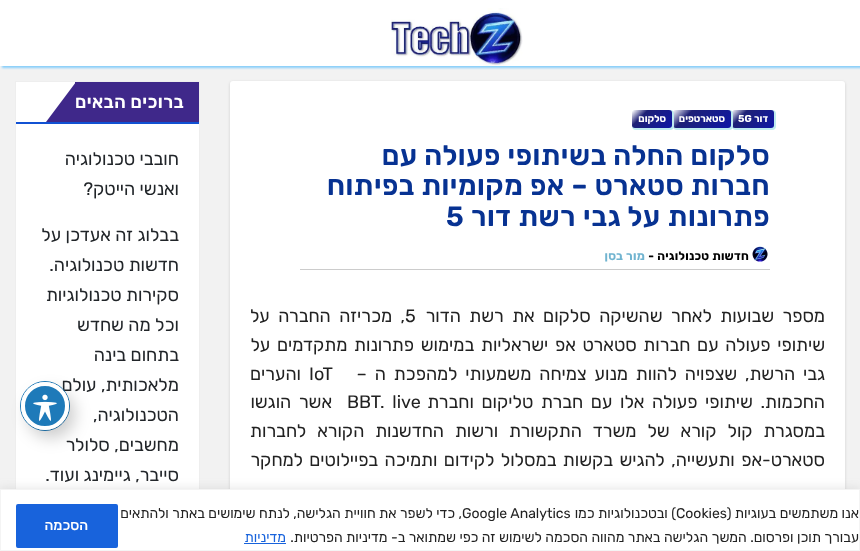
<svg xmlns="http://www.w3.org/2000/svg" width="860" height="551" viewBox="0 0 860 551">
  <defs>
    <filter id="blur1" x="-50%" y="-200%" width="200%" height="500%"><feGaussianBlur stdDeviation="1"/></filter>
    <filter id="blur2" x="-50%" y="-200%" width="200%" height="500%"><feGaussianBlur stdDeviation="1.5"/></filter>
    <filter id="blur3" x="-50%" y="-200%" width="200%" height="500%"><feGaussianBlur stdDeviation="0.5"/></filter>
    <linearGradient id="g1" gradientUnits="userSpaceOnUse" x1="738" y1="104" x2="768" y2="134"><stop offset="0" stop-color="#ffffff"/><stop offset="0.26" stop-color="#1e2176"/><stop offset="1" stop-color="#0e16a6"/></linearGradient>
    <linearGradient id="g2" gradientUnits="userSpaceOnUse" x1="683" y1="100" x2="721" y2="138"><stop offset="0" stop-color="#ffffff"/><stop offset="0.26" stop-color="#1e2176"/><stop offset="1" stop-color="#0e16a6"/></linearGradient>
    <linearGradient id="g3" gradientUnits="userSpaceOnUse" x1="638" y1="105" x2="667" y2="134"><stop offset="0" stop-color="#ffffff"/><stop offset="0.26" stop-color="#1e2176"/><stop offset="1" stop-color="#0e16a6"/></linearGradient>
    <filter id="blur4" x="-50%" y="-200%" width="200%" height="500%"><feGaussianBlur stdDeviation="8"/></filter>
    <filter id="blur5" x="-50%" y="-200%" width="200%" height="500%"><feGaussianBlur stdDeviation="5"/></filter>
  </defs>
  <rect width="100%" height="100%" fill="#f2f2f2"/>
  <rect x="2" y="2" width="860" height="66" fill="#87cefa" filter="url(#blur1)"/>
  <rect x="0" y="0" width="860" height="66" fill="#ffffff"/>
  <image x="391" y="8" width="132" height="58" href="img1.png"/>
  <rect x="230" y="82" width="615" height="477" rx="3" fill="#000000" fill-opacity="0.15" filter="url(#blur2)"/>
  <rect x="230" y="81" width="615" height="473" rx="3" fill="#ffffff"/>
  <rect x="732" y="110" width="44" height="20" rx="4" fill="#beebef" filter="url(#blur3)"/>
  <rect x="732" y="110" width="42" height="18" rx="3" fill="url(#g1)"/>
  <text x="768" y="122" font-family="Rubik" font-size="10" font-weight="bold" direction="rtl" fill="#ffffff">דור</text>
  <text x="738" y="122" font-family="Rubik" font-size="10" font-weight="bold" fill="#ffffff">5G</text>
  <rect x="673" y="110" width="60" height="20" rx="4" fill="#beebef" filter="url(#blur3)"/>
  <rect x="673" y="110" width="58" height="18" rx="3" fill="url(#g2)"/>
  <text x="725" y="122" font-family="Rubik" font-size="10" font-weight="bold" direction="rtl" fill="#ffffff">סטארטפים</text>
  <rect x="632" y="110" width="42" height="20" rx="4" fill="#beebef" filter="url(#blur3)"/>
  <rect x="632" y="110" width="40" height="18" rx="3" fill="url(#g3)"/>
  <text x="666" y="122" font-family="Rubik" font-size="10" font-weight="bold" direction="rtl" fill="#ffffff">סלקום</text>
  <text x="770" y="165" font-family="Rubik" font-size="28" font-weight="600" letter-spacing="0.55" direction="rtl" fill="#073292">סלקום החלה בשיתופי פעולה עם</text>
  <text x="770" y="195" font-family="Rubik" font-size="28" font-weight="600" letter-spacing="0.55" direction="rtl" fill="#073292">חברות סטארט – אפ מקומיות בפיתוח</text>
  <text x="770" y="226" word-spacing="0.5" font-family="Rubik" font-size="28" font-weight="600" letter-spacing="0.55" direction="rtl" fill="#073292">פתרונות על גבי רשת דור</text>
  <text x="446" y="226" font-family="Rubik" font-size="28" font-weight="600" letter-spacing="0.55" fill="#073292">5</text>
  <rect x="300" y="269" width="470" height="1" fill="#cccccc"/>
  <image x="752" y="246" width="16" height="16" href="img2.png"/>
  <text x="749" y="260" font-family="Rubik" font-size="12" font-weight="bold" letter-spacing="0.25" direction="rtl" fill="#000000">חדשות טכנולוגיה -</text>
  <text x="645" y="260" font-family="Rubik" font-size="12" font-weight="bold" letter-spacing="0.25" direction="rtl" fill="#71b4d0">מור בסן</text>
  <text x="825" y="322" word-spacing="4" font-family="Rubik" font-size="18" direction="rtl" fill="#222222">מספר שבועות לאחר שהשיקה סלקום את רשת הדור</text>
  <text x="405" y="322" font-family="Rubik" font-size="18" fill="#222222">5</text>
  <text x="405" y="322" word-spacing="4" font-family="Rubik" font-size="18" direction="rtl" fill="#222222">, מכריזה החברה על</text>
  <text x="825" y="351" word-spacing="2.25" font-family="Rubik" font-size="18" direction="rtl" fill="#222222">שיתופי פעולה עם חברות סטארט אפ ישראליות במימוש פתרונות מתקדמים על</text>
  <text x="825" y="380" word-spacing="3.5" font-family="Rubik" font-size="18" direction="rtl" fill="#222222">גבי הרשת, שצפויה להוות מנוע צמיחה משמעותי למהפכת ה –</text>
  <text x="309" y="380" font-family="Rubik" font-size="18" fill="#222222">IoT</text>
  <text x="301" y="380" font-family="Rubik" font-size="18" direction="rtl" fill="#222222">והערים</text>
  <text x="825" y="408" word-spacing="3.25" font-family="Rubik" font-size="18" direction="rtl" fill="#222222">החכמות. שיתופי פעולה אלו עם חברת טליקום וחברת</text>
  <text x="347" y="408" word-spacing="3.25" font-family="Rubik" font-size="18" fill="#222222">BBT. live</text>
  <text x="332" y="408" word-spacing="3.25" font-family="Rubik" font-size="18" direction="rtl" fill="#222222">אשר הוגשו</text>
  <text x="825" y="437" word-spacing="6.5" font-family="Rubik" font-size="18" direction="rtl" fill="#222222">במסגרת קול קורא של משרד התקשורת ורשות החדשנות הקורא לחברות</text>
  <text x="825" y="466" word-spacing="2" font-family="Rubik" font-size="18" direction="rtl" fill="#222222">סטארט-אפ ותעשייה, להגיש בקשות במסלול לקידום ותמיכה בפיילוטים למחקר</text>
  <rect x="16" y="82" width="183" height="407" fill="#ffffff"/>
  <rect x="15.5" y="81.5" width="184" height="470" fill="none" stroke="#eeeeee"/>
  <rect x="16" y="122" width="183" height="2" fill="#1151d3"/>
  <rect x="75" y="82" width="124" height="40" fill="#3f288a"/>
  <text x="184" y="108" font-family="Rubik" font-size="18" font-weight="600" letter-spacing="0.4" direction="rtl" fill="#ffffff">ברוכים הבאים</text>
  <path d="M76 122V82L46 122Z" fill="#3f288a"/>
  <text x="179" y="165" font-family="Rubik" font-size="18" direction="rtl" fill="#212529">חובבי טכנולוגיה</text>
  <text x="179" y="195" font-family="Rubik" font-size="18" direction="rtl" fill="#212529">ואנשי הייטק?</text>
  <text x="179" y="241" font-family="Rubik" font-size="18" direction="rtl" fill="#212529">בבלוג זה אעדכן על</text>
  <text x="179" y="271" font-family="Rubik" font-size="18" direction="rtl" fill="#212529">חדשות טכנולוגיה.</text>
  <text x="179" y="301" font-family="Rubik" font-size="18" direction="rtl" fill="#212529">סקירות טכנולוגיות</text>
  <text x="179" y="331" font-family="Rubik" font-size="18" direction="rtl" fill="#212529">וכל מה שחדש</text>
  <text x="179" y="361" font-family="Rubik" font-size="18" direction="rtl" fill="#212529">בתחום בינה</text>
  <text x="179" y="391" font-family="Rubik" font-size="18" direction="rtl" fill="#212529">מלאכותית, עולם</text>
  <text x="179" y="421" font-family="Rubik" font-size="18" direction="rtl" fill="#212529">הטכנולוגיה,</text>
  <text x="179" y="451" font-family="Rubik" font-size="18" direction="rtl" fill="#212529">מחשבים, סלולר</text>
  <text x="179" y="481" font-family="Rubik" font-size="18" direction="rtl" fill="#212529">סייבר, גיימינג ועוד.</text>
  <circle cx="45" cy="406" r="24.5" fill="none" stroke="#1e7ab9"/>
  <rect x="27" y="390" width="48" height="48" rx="24" fill="#000000" fill-opacity="0.2" filter="url(#blur4)"/>
  <circle cx="45" cy="406" r="22" fill="#1e7ab9" stroke="#ffffff" stroke-width="4"/>
  <image x="33" y="394" width="24" height="27" href="img3.png"/>
  <rect x="0" y="488" width="860" height="62" fill="#acabab" fill-opacity="0.3" filter="url(#blur5)"/>
  <rect x="0.5" y="489.5" width="859" height="61" fill="#ffffff" stroke="#f4f4f4"/>
  <text x="859" y="518" font-family="Rubik" font-size="14" direction="rtl" fill="#222222">אנו משתמשים בעוגיות (</text>
  <text x="676" y="518" font-family="Rubik" font-size="14" fill="#222222">Cookies</text>
  <text x="676" y="518" font-family="Rubik" font-size="14" direction="rtl" fill="#222222">) ובטכנולוגיות כמו</text>
  <text x="462" y="518" font-family="Rubik" font-size="14" fill="#222222">Google Analytics</text>
  <text x="462" y="518" font-family="Rubik" font-size="14" direction="rtl" fill="#222222">, כדי לשפר את חוויית הגלישה, לנתח שימושים באתר ולהתאים</text>
  <text x="859" y="542" font-family="Rubik" font-size="14" direction="rtl" fill="#222222">עבורך תוכן ופרסום. המשך הגלישה באתר מהווה הסכמה לשימוש זה כפי שמתואר ב- מדיניות הפרטיות.</text>
  <text x="286" y="542" font-family="Rubik" font-size="14" direction="rtl" fill="#1863dc">מדיניות</text>
  <rect x="244" y="543" width="42" height="1" fill="#1863dc"/>
  <rect x="17" y="505" width="100" height="42" rx="1" fill="#1863dc" stroke="#1863dc" stroke-width="2"/>
  <text x="88" y="530" font-family="Rubik" font-size="14" font-weight="500" direction="rtl" fill="#ffffff">הסכמה</text>
</svg>
